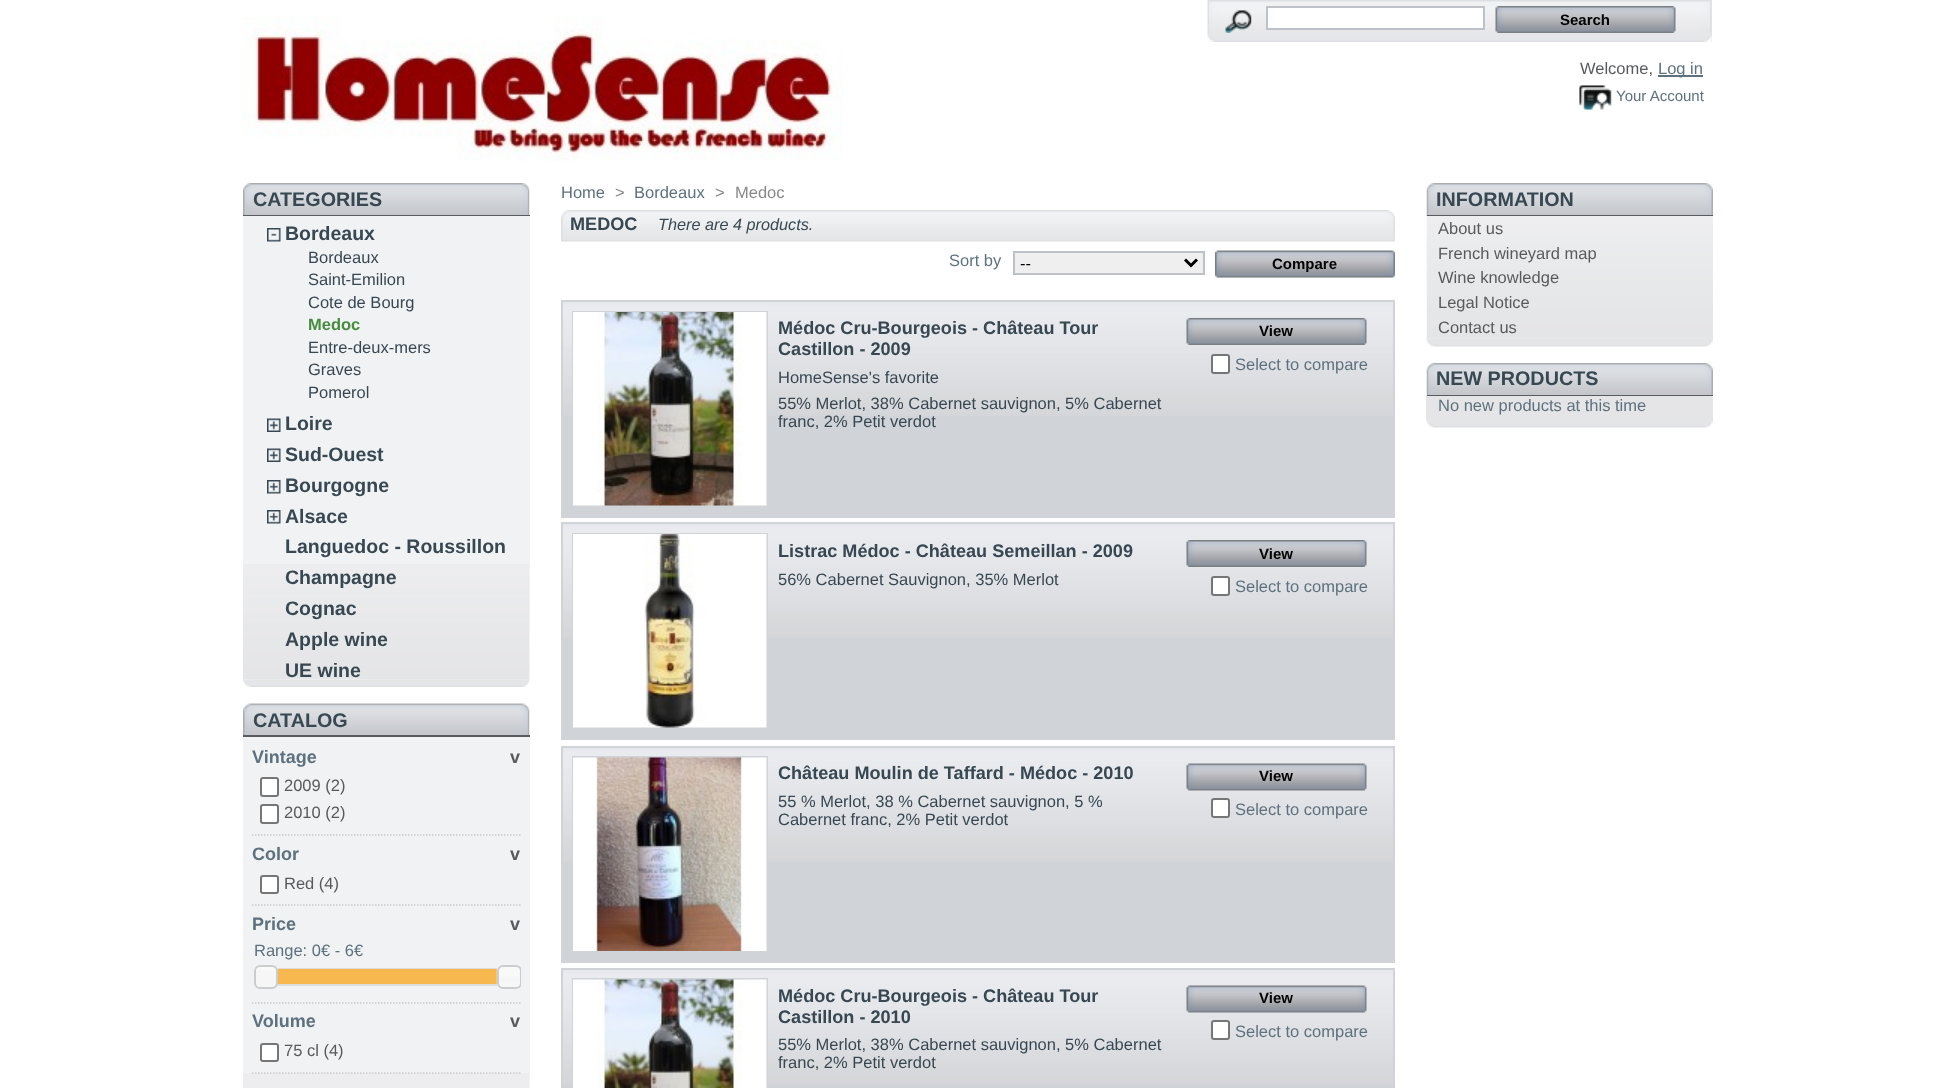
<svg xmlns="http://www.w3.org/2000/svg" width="1955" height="1088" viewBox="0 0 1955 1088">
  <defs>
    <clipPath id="clip1"><rect x="252" y="941" width="269" height="54"/></clipPath>
  </defs>
  <rect width="100%" height="100%" fill="#ffffff"/>
  <image x="243" y="16" width="600" height="145" href="img1.png"/>
  <rect x="1711" y="0" width="1" height="42" fill="#e5e6e7"/>
  <image x="1207" y="0" width="505" height="42" href="img2.png"/>
  <image x="1225" y="10" width="27" height="23" href="img3.png"/>
  <rect x="1267" y="7" width="217" height="22" fill="#ffffff" stroke="#bdc2c9" stroke-width="2"/>
  <rect x="1496" y="6" width="180" height="27" fill="#efefef"/>
  <image x="1495" y="6" width="181" height="27" href="img4.png"/>
  <text x="1560" y="25" font-family="Liberation Sans" font-size="15" font-weight="bold" fill="#000000">Search</text>
  <text x="1580" y="74" font-family="Liberation Sans" font-size="16.5" fill="#595a5e">Welcome,</text>
  <rect x="1658" y="75" width="45" height="2" fill="#5d717e"/>
  <text x="1658" y="74" font-family="Liberation Sans" font-size="16.5" fill="#5d717e">Log in</text>
  <image x="1579" y="85" width="33" height="25" href="img5.png"/>
  <text x="1616" y="101" font-family="Liberation Sans" font-size="15" fill="#5d717e">Your Account</text>
  <image x="243" y="680" width="287" height="7" href="img6.png"/>
  <image x="243" y="183" width="287" height="32" href="img7.png"/>
  <rect x="243" y="215" width="287" height="1" fill="#595a5e"/>
  <text x="253" y="206" font-family="Liberation Sans" font-size="19.75" font-weight="bold" fill="#374853">CATEGORIES</text>
  <rect x="243" y="216" width="287" height="464" fill="#f1f2f4"/>
  <image x="243" y="564" width="286" height="116" href="img8.png"/>
  <image x="267" y="228" width="14" height="14" href="img9.png"/>
  <text x="285" y="240" font-family="Liberation Sans" font-size="19.5" font-weight="bold" fill="#374853">Bordeaux</text>
  <text x="308" y="263" font-family="Liberation Sans" font-size="16.5" fill="#374853">Bordeaux</text>
  <text x="308" y="285" font-family="Liberation Sans" font-size="16.5" fill="#374853">Saint-Emilion</text>
  <text x="308" y="308" font-family="Liberation Sans" font-size="16.5" fill="#374853">Cote de Bourg</text>
  <text x="308" y="330" font-family="Liberation Sans" font-size="16.5" font-weight="bold" fill="#488c40">Medoc</text>
  <text x="308" y="353" font-family="Liberation Sans" font-size="16.5" fill="#374853">Entre-deux-mers</text>
  <text x="308" y="375" font-family="Liberation Sans" font-size="16.5" fill="#374853">Graves</text>
  <text x="308" y="398" font-family="Liberation Sans" font-size="16.5" fill="#374853">Pomerol</text>
  <image x="267" y="418" width="14" height="14" href="img10.png"/>
  <text x="285" y="430" font-family="Liberation Sans" font-size="19.5" font-weight="bold" fill="#374853">Loire</text>
  <image x="267" y="448" width="14" height="14" href="img10.png"/>
  <text x="285" y="461" font-family="Liberation Sans" font-size="19.5" font-weight="bold" fill="#374853">Sud-Ouest</text>
  <image x="267" y="480" width="14" height="14" href="img11.png"/>
  <text x="285" y="492" font-family="Liberation Sans" font-size="19.5" font-weight="bold" fill="#374853">Bourgogne</text>
  <image x="267" y="510" width="14" height="14" href="img11.png"/>
  <text x="285" y="523" font-family="Liberation Sans" font-size="19.5" font-weight="bold" fill="#374853">Alsace</text>
  <text x="285" y="553" font-family="Liberation Sans" font-size="19.5" font-weight="bold" fill="#374853">Languedoc - Roussillon</text>
  <text x="285" y="584" font-family="Liberation Sans" font-size="19.5" font-weight="bold" fill="#374853">Champagne</text>
  <text x="285" y="615" font-family="Liberation Sans" font-size="19.5" font-weight="bold" fill="#374853">Cognac</text>
  <text x="285" y="646" font-family="Liberation Sans" font-size="19.5" font-weight="bold" fill="#374853">Apple wine</text>
  <text x="285" y="677" font-family="Liberation Sans" font-size="19.5" font-weight="bold" fill="#374853">UE wine</text>
  <image x="243" y="703" width="287" height="32" href="img12.png"/>
  <rect x="243" y="735" width="287" height="2" fill="#595a5e"/>
  <text x="253" y="727" font-family="Liberation Sans" font-size="19.75" font-weight="bold" fill="#374853">CATALOG</text>
  <rect x="243" y="737" width="287" height="351" fill="#f1f2f4"/>
  <rect x="243" y="1073" width="286" height="15" fill="#ededef"/>
  <path d="M252 835H520.5" fill="none" stroke="#cccccc" stroke-width="1.5" stroke-dasharray="1.5 1.5"/>
  <text x="252" y="763" font-family="Liberation Sans" font-size="18" font-weight="bold" fill="#5d717e">Vintage</text>
  <text x="510" y="763" font-family="Liberation Sans" font-size="18" font-weight="bold" fill="#595a5e">v</text>
  <rect x="261" y="778" width="17" height="18" rx="2" fill="#ffffff" stroke="#767676" stroke-width="2"/>
  <text x="284" y="791" font-family="Liberation Sans" font-size="16.5" fill="#595a5e">2009 (2)</text>
  <rect x="261" y="805" width="17" height="18" rx="2" fill="#ffffff" stroke="#767676" stroke-width="2"/>
  <text x="284" y="818" font-family="Liberation Sans" font-size="16.5" fill="#595a5e">2010 (2)</text>
  <path d="M252 905H520.5" fill="none" stroke="#cccccc" stroke-width="1.5" stroke-dasharray="1.5 1.5"/>
  <text x="252" y="860" font-family="Liberation Sans" font-size="18" font-weight="bold" fill="#5d717e">Color</text>
  <text x="510" y="860" font-family="Liberation Sans" font-size="18" font-weight="bold" fill="#595a5e">v</text>
  <rect x="261" y="876" width="17" height="17" rx="2" fill="#ffffff" stroke="#767676" stroke-width="2"/>
  <text x="284" y="889" font-family="Liberation Sans" font-size="16.5" fill="#595a5e">Red (4)</text>
  <path d="M252 1003H520.5" fill="none" stroke="#cccccc" stroke-width="1.5" stroke-dasharray="1.5 1.5"/>
  <text x="252" y="930" font-family="Liberation Sans" font-size="18" font-weight="bold" fill="#5d717e">Price</text>
  <text x="510" y="930" font-family="Liberation Sans" font-size="18" font-weight="bold" fill="#595a5e">v</text>
  <text x="254" y="956" font-family="Liberation Sans" font-size="16.5" fill="#5d717e">Range: 0€ - 6€</text>
  <rect x="264" y="969" width="245" height="16" fill="none" stroke="#dddddd" stroke-width="2"/>
  <rect x="277" y="969" width="220" height="15" fill="#f7b850"/>
  <rect x="254" y="965" width="24" height="24" rx="6" fill="#f6f6f6"/>
  <image x="254" y="965" width="24" height="5" href="img13.png"/>
  <rect x="255" y="966" width="22" height="22" rx="5" fill="none" stroke="#cccccc" stroke-width="2"/>
  <g clip-path="url(#clip1)">
    <rect x="497" y="965" width="25" height="24" rx="6" fill="#f6f6f6"/>
  </g>
  <image x="496" y="965" width="23" height="21" href="img14.png"/>
  <g clip-path="url(#clip1)">
    <rect x="498" y="966" width="23" height="22" rx="5" fill="none" stroke="#cccccc" stroke-width="2"/>
  </g>
  <path d="M252 1073H520.5" fill="none" stroke="#cccccc" stroke-width="1.5" stroke-dasharray="1.5 1.5"/>
  <text x="252" y="1027" font-family="Liberation Sans" font-size="18" font-weight="bold" fill="#5d717e">Volume</text>
  <text x="510" y="1027" font-family="Liberation Sans" font-size="18" font-weight="bold" fill="#595a5e">v</text>
  <rect x="261" y="1044" width="17" height="17" rx="2" fill="#ffffff" stroke="#767676" stroke-width="2"/>
  <text x="284" y="1056" font-family="Liberation Sans" font-size="16.5" fill="#595a5e">75 cl (4)</text>
  <text x="561" y="198" font-family="Liberation Sans" font-size="16.5" fill="#5d717e">Home</text>
  <text x="615" y="198" font-family="Liberation Sans" font-size="16.5" fill="#888888">&gt;</text>
  <text x="634" y="198" font-family="Liberation Sans" font-size="16.5" fill="#5d717e">Bordeaux</text>
  <text x="715" y="198" font-family="Liberation Sans" font-size="16.5" fill="#888888">&gt;</text>
  <text x="735" y="198" font-family="Liberation Sans" font-size="16.5" fill="#888888">Medoc</text>
  <image x="561" y="210" width="834" height="32" href="img15.png"/>
  <text x="570" y="230" font-family="Liberation Sans" font-size="18.1" font-weight="bold" fill="#374853">MEDOC</text>
  <text x="658" y="230" font-family="Liberation Sans" font-size="16.25" font-style="italic" fill="#374853">There are 4 products.</text>
  <text x="949" y="266" font-family="Liberation Sans" font-size="16.5" fill="#5d717e">Sort by</text>
  <rect x="1014" y="252" width="190" height="22" fill="#efefef" stroke="#bdc2c9" stroke-width="2"/>
  <path d="M1185 259.5L1191 265.5L1197 259.5" fill="none" stroke="#000000" stroke-width="3"/>
  <text x="1020" y="269" font-family="Liberation Sans" font-size="16.5" fill="#000000">--</text>
  <rect x="1215" y="251" width="180" height="27" fill="#efefef"/>
  <image x="1215" y="250" width="180" height="28" href="img16.png"/>
  <text x="1272" y="269" font-family="Liberation Sans" font-size="15" font-weight="bold" fill="#000000">Compare</text>
  <rect x="563" y="416" width="830" height="100" fill="#d0d3d8"/>
  <image x="563" y="302" width="830" height="114" href="img17.png"/>
  <rect x="562" y="301" width="832" height="216" fill="none" stroke="#d0d3d8" stroke-width="2"/>
  <rect x="573" y="312" width="194" height="194" fill="none" stroke="#d0d3d8" stroke-width="2"/>
  <image x="573" y="312" width="194" height="194" href="img18.png"/>
  <text x="778" y="334" font-family="Liberation Sans" font-size="18.1" font-weight="bold" fill="#374853">Médoc Cru-Bourgeois - Château Tour</text>
  <text x="778" y="355" font-family="Liberation Sans" font-size="18.1" font-weight="bold" fill="#374853">Castillon - 2009</text>
  <text x="778" y="383" font-family="Liberation Sans" font-size="16.5" fill="#374853">HomeSense's favorite</text>
  <text x="778" y="409" font-family="Liberation Sans" font-size="16.5" fill="#374853">55% Merlot, 38% Cabernet sauvignon, 5% Cabernet</text>
  <text x="778" y="427" font-family="Liberation Sans" font-size="16.5" fill="#374853">franc, 2% Petit verdot</text>
  <image x="1186" y="318" width="181" height="27" href="img19.png"/>
  <text x="1259" y="336" font-family="Liberation Sans" font-size="15" font-weight="bold" fill="#000000">View</text>
  <rect x="1212" y="355" width="17" height="18" rx="2" fill="#ffffff" stroke="#767676" stroke-width="2"/>
  <text x="1235" y="370" font-family="Liberation Sans" font-size="16.5" fill="#5d717e">Select to compare</text>
  <rect x="563" y="638" width="830" height="100" fill="#d0d3d8"/>
  <image x="563" y="524" width="830" height="114" href="img17.png"/>
  <rect x="562" y="523" width="832" height="216" fill="none" stroke="#d0d3d8" stroke-width="2"/>
  <rect x="573" y="534" width="194" height="194" fill="none" stroke="#d0d3d8" stroke-width="2"/>
  <image x="573" y="534" width="194" height="194" href="img20.png"/>
  <text x="778" y="557" font-family="Liberation Sans" font-size="18.1" font-weight="bold" fill="#374853">Listrac Médoc - Château Semeillan - 2009</text>
  <text x="778" y="585" font-family="Liberation Sans" font-size="16.5" fill="#374853">56% Cabernet Sauvignon, 35% Merlot</text>
  <image x="1186" y="540" width="181" height="27" href="img19.png"/>
  <text x="1259" y="559" font-family="Liberation Sans" font-size="15" font-weight="bold" fill="#000000">View</text>
  <rect x="1212" y="577" width="17" height="18" rx="2" fill="#ffffff" stroke="#767676" stroke-width="2"/>
  <text x="1235" y="592" font-family="Liberation Sans" font-size="16.5" fill="#5d717e">Select to compare</text>
  <rect x="563" y="862" width="830" height="99" fill="#d0d3d8"/>
  <image x="563" y="748" width="830" height="114" href="img21.png"/>
  <rect x="562" y="747" width="832" height="215" fill="none" stroke="#d0d3d8" stroke-width="2"/>
  <rect x="573" y="757" width="194" height="195" fill="none" stroke="#d0d3d8" stroke-width="2"/>
  <image x="573" y="757" width="194" height="194" href="img22.png"/>
  <text x="778" y="779" font-family="Liberation Sans" font-size="18.1" font-weight="bold" fill="#374853">Château Moulin de Taffard - Médoc - 2010</text>
  <text x="778" y="807" font-family="Liberation Sans" font-size="16.5" fill="#374853">55 % Merlot, 38 % Cabernet sauvignon, 5 %</text>
  <text x="778" y="825" font-family="Liberation Sans" font-size="16.5" fill="#374853">Cabernet franc, 2% Petit verdot</text>
  <image x="1186" y="763" width="181" height="28" href="img23.png"/>
  <text x="1259" y="781" font-family="Liberation Sans" font-size="15" font-weight="bold" fill="#000000">View</text>
  <rect x="1212" y="799" width="17" height="18" rx="2" fill="#ffffff" stroke="#767676" stroke-width="2"/>
  <text x="1235" y="815" font-family="Liberation Sans" font-size="16.5" fill="#5d717e">Select to compare</text>
  <rect x="563" y="1084" width="830" height="4" fill="#d0d3d8"/>
  <image x="563" y="970" width="830" height="114" href="img21.png"/>
  <rect x="562" y="969" width="832" height="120" fill="none" stroke="#d0d3d8" stroke-width="2"/>
  <rect x="573" y="979" width="194" height="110" fill="none" stroke="#d0d3d8" stroke-width="2"/>
  <image x="573" y="979" width="194" height="109" href="img24.png"/>
  <text x="778" y="1002" font-family="Liberation Sans" font-size="18.1" font-weight="bold" fill="#374853">Médoc Cru-Bourgeois - Château Tour</text>
  <text x="778" y="1023" font-family="Liberation Sans" font-size="18.1" font-weight="bold" fill="#374853">Castillon - 2010</text>
  <text x="778" y="1050" font-family="Liberation Sans" font-size="16.5" fill="#374853">55% Merlot, 38% Cabernet sauvignon, 5% Cabernet</text>
  <text x="778" y="1068" font-family="Liberation Sans" font-size="16.5" fill="#374853">franc, 2% Petit verdot</text>
  <image x="1186" y="985" width="181" height="28" href="img23.png"/>
  <text x="1259" y="1003" font-family="Liberation Sans" font-size="15" font-weight="bold" fill="#000000">View</text>
  <rect x="1212" y="1021" width="17" height="18" rx="2" fill="#ffffff" stroke="#767676" stroke-width="2"/>
  <text x="1235" y="1037" font-family="Liberation Sans" font-size="16.5" fill="#5d717e">Select to compare</text>
  <image x="1426" y="337" width="287" height="10" href="img25.png"/>
  <image x="1426" y="183" width="287" height="33" href="img26.png"/>
  <rect x="1427" y="215" width="286" height="1" fill="#595a5e"/>
  <text x="1436" y="206" font-family="Liberation Sans" font-size="19.75" font-weight="bold" fill="#374853">INFORMATION</text>
  <image x="1426" y="216" width="287" height="123" href="img27.png"/>
  <text x="1438" y="234" font-family="Liberation Sans" font-size="16.5" fill="#595a5e">About us</text>
  <text x="1438" y="259" font-family="Liberation Sans" font-size="16.5" fill="#595a5e">French wineyard map</text>
  <text x="1438" y="283" font-family="Liberation Sans" font-size="16.5" fill="#595a5e">Wine knowledge</text>
  <text x="1438" y="308" font-family="Liberation Sans" font-size="16.5" fill="#595a5e">Legal Notice</text>
  <text x="1438" y="333" font-family="Liberation Sans" font-size="16.5" fill="#595a5e">Contact us</text>
  <image x="1426" y="420" width="287" height="8" href="img28.png"/>
  <image x="1426" y="363" width="287" height="33" href="img26.png"/>
  <rect x="1427" y="395" width="286" height="1" fill="#595a5e"/>
  <text x="1436" y="385" font-family="Liberation Sans" font-size="19.75" font-weight="bold" fill="#374853">NEW PRODUCTS</text>
  <rect x="1426" y="396" width="287" height="24" fill="#e5e5e7"/>
  <text x="1438" y="411" font-family="Liberation Sans" font-size="16.5" fill="#5d717e">No new products at this time</text>
</svg>
